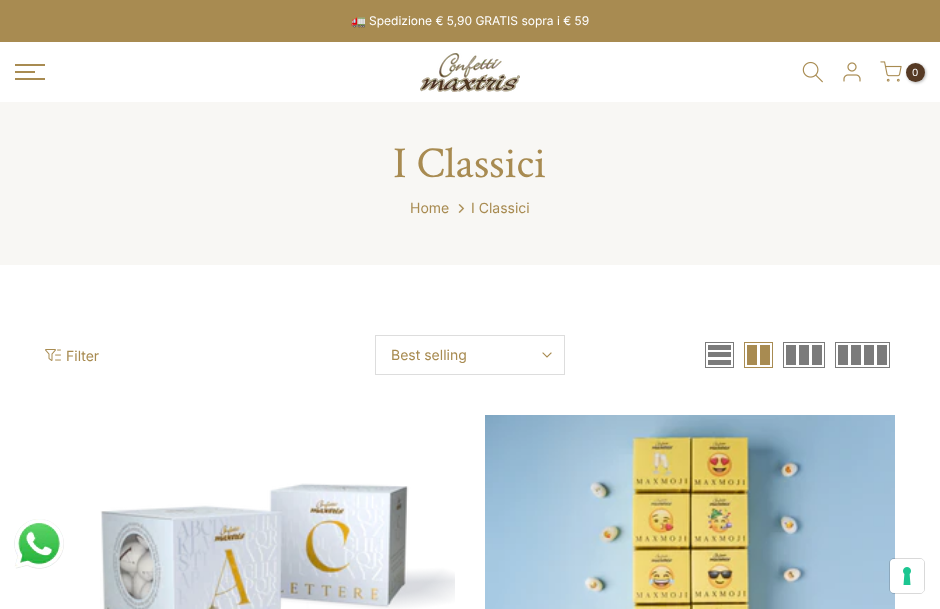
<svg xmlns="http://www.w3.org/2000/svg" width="940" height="609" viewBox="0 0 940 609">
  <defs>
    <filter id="blur1" x="-50%" y="-200%" width="200%" height="500%"><feGaussianBlur stdDeviation="1.5"/></filter>
  </defs>
  <rect width="100%" height="100%" fill="#ffffff"/>
  <rect x="0" y="0" width="940" height="42" fill="#a88b51"/>
  <text x="351" y="25" font-family="Noto Color Emoji" font-size="12" fill="#ffffff">🚛</text>
  <text x="369" y="25" font-family="Inter" font-size="12" fill="#ffffff">Spedizione € 5,90 GRATIS sopra i € 59</text>
  <rect x="15" y="64" width="30" height="2" fill="#a88b51"/>
  <rect x="15" y="71" width="20" height="2" fill="#a88b51"/>
  <rect x="15" y="78" width="30" height="2" fill="#a88b51"/>
  <image x="420" y="53" width="100" height="39" href="img1.png"/>
  <image x="802" y="61" width="21" height="22" href="img2.png"/>
  <image x="843" y="62" width="18" height="20" href="img3.png"/>
  <rect x="907" y="64" width="19" height="19" rx="9.5" fill="#000000" fill-opacity="0.3" filter="url(#blur1)"/>
  <image x="880" y="61" width="22" height="21" href="img4.png"/>
  <circle cx="915.5" cy="72.5" r="9.5" fill="#563a24"/>
  <text x="912" y="76" font-family="Inter" font-size="10" fill="#ffffff">0</text>
  <rect x="0" y="102" width="940" height="163" fill="#f8f7f4"/>
  <text x="393" y="177" font-family="Crimson Text" font-size="44" fill="#a88b51">I Classici</text>
  <text x="410" y="213" font-family="Inter" font-size="14" fill="#a88b51">Home</text>
  <image x="458" y="204" width="7" height="9" href="img5.png"/>
  <text x="471" y="213" font-family="Inter" font-size="14" fill="#a88b51">I Classici</text>
  <image x="45" y="349" width="16" height="12" href="img6.png"/>
  <text x="66" y="361" font-family="Inter" font-size="14" fill="#a88b51">Filter</text>
  <rect x="375.5" y="335.5" width="189" height="39" fill="none" stroke="#dddddd"/>
  <text x="391" y="360" font-family="Inter" font-size="14" fill="#a88b51">Best selling</text>
  <path d="M551 353L547 357L543 353" fill="none" stroke="#a88b51" stroke-width="1.1" stroke-linecap="square"/>
  <rect x="705.5" y="342.5" width="28" height="25" fill="none" stroke="#7b7b7b"/>
  <rect x="708" y="360" width="23" height="5" fill="#7b7b7b"/>
  <rect x="708" y="352" width="23" height="5" fill="#7b7b7b"/>
  <rect x="708" y="345" width="23" height="5" fill="#7b7b7b"/>
  <rect x="744.5" y="342.5" width="28" height="25" fill="none" stroke="#a88b51"/>
  <rect x="760" y="345" width="10" height="20" fill="#a88b51"/>
  <rect x="747" y="345" width="10" height="20" fill="#a88b51"/>
  <rect x="783.5" y="342.5" width="41" height="25" fill="none" stroke="#7b7b7b"/>
  <rect x="812" y="345" width="10" height="20" fill="#7b7b7b"/>
  <rect x="799" y="345" width="10" height="20" fill="#7b7b7b"/>
  <rect x="786" y="345" width="10" height="20" fill="#7b7b7b"/>
  <rect x="835.5" y="342.5" width="54" height="25" fill="none" stroke="#7b7b7b"/>
  <rect x="877" y="345" width="10" height="20" fill="#7b7b7b"/>
  <rect x="864" y="345" width="10" height="20" fill="#7b7b7b"/>
  <rect x="851" y="345" width="10" height="20" fill="#7b7b7b"/>
  <rect x="838" y="345" width="10" height="20" fill="#7b7b7b"/>
  <image x="100" y="483" width="355" height="126" href="img7.png"/>
  <image x="485" y="415" width="410" height="194" href="img8.png"/>
  <image x="14" y="519" width="50" height="50" href="img9.png"/>
  <rect x="889.5" y="558.5" width="35" height="35" rx="4.5" fill="none" stroke="#000000" stroke-opacity="0.15"/>
  <rect x="890" y="559" width="34" height="34" rx="4" fill="#ffffff"/>
  <image x="903" y="567" width="8" height="18" href="img10.png"/>
</svg>
